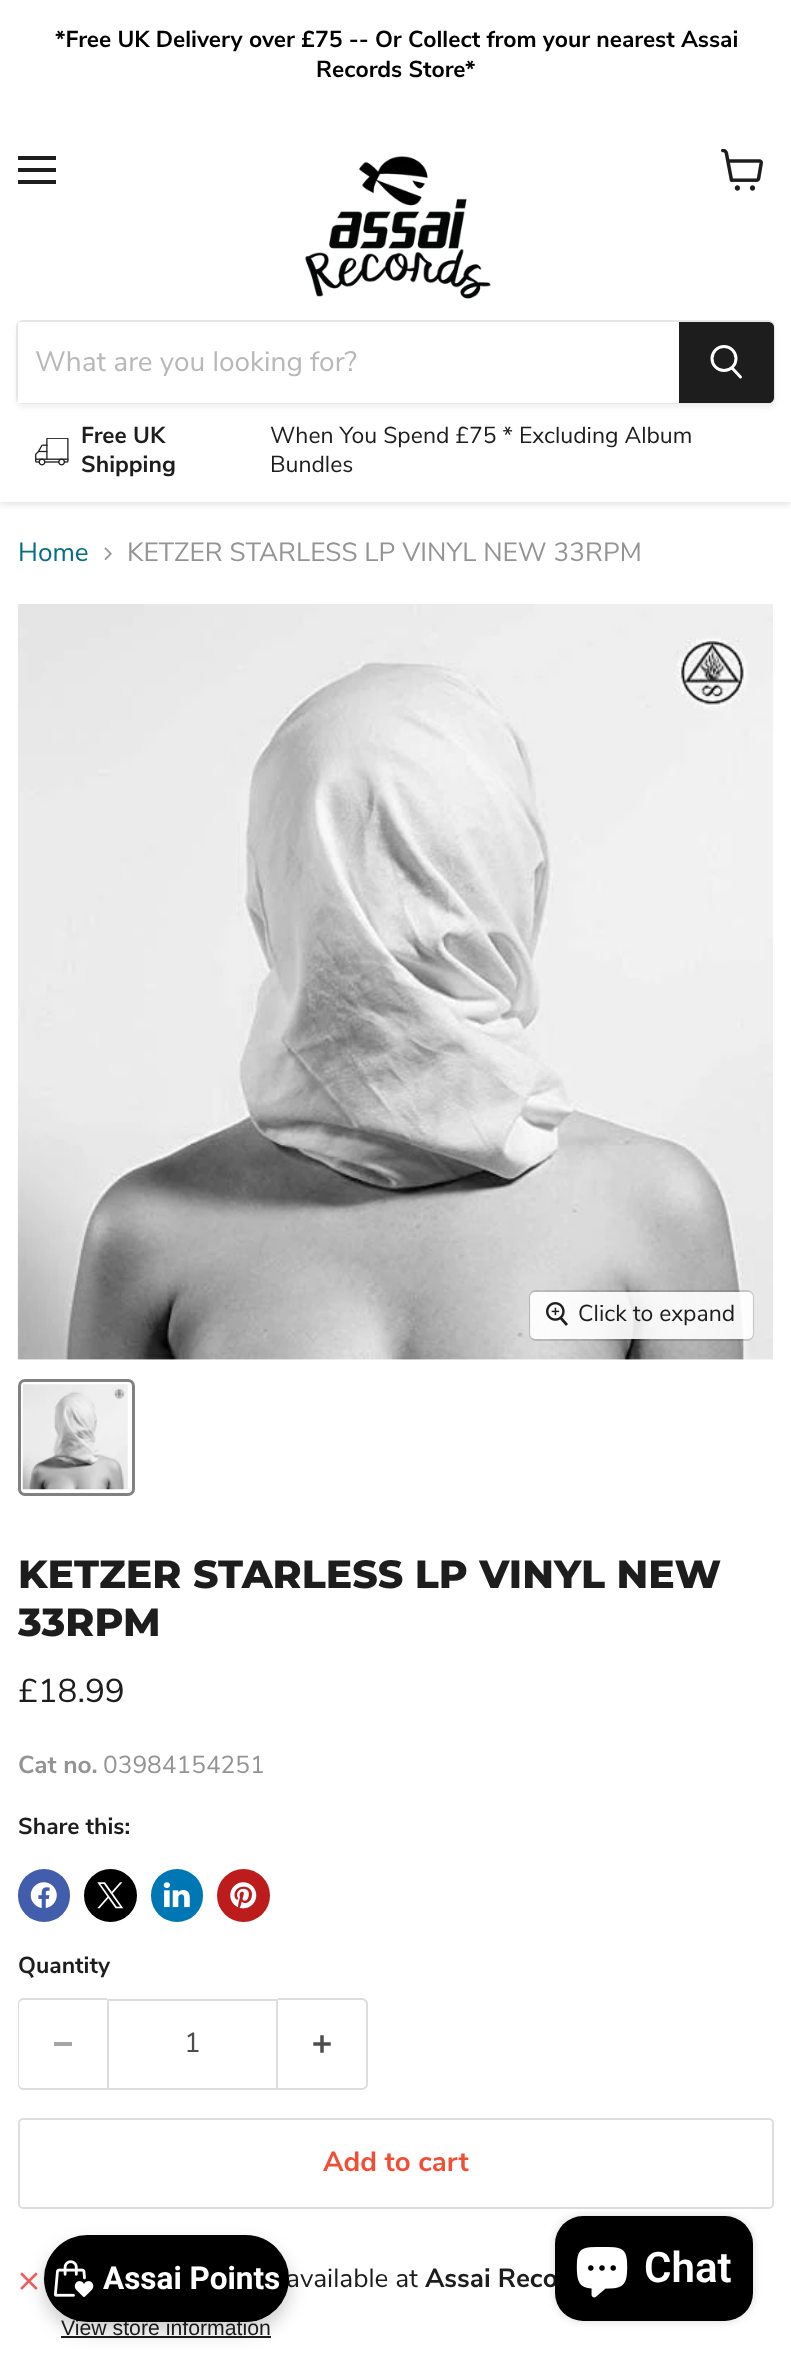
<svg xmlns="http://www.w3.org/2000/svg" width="791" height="2357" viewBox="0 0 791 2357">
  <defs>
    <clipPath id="clip1"><rect x="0" y="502" width="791" height="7"/></clipPath>
    <filter id="blur1" x="-50%" y="-200%" width="200%" height="500%"><feGaussianBlur stdDeviation="3.5"/></filter>
    <filter id="blur2" x="-50%" y="-200%" width="200%" height="500%"><feGaussianBlur stdDeviation="2.5"/></filter>
    <filter id="blur3" x="-50%" y="-200%" width="200%" height="500%"><feGaussianBlur stdDeviation="9"/></filter>
    <filter id="blur4" x="-50%" y="-200%" width="200%" height="500%"><feGaussianBlur stdDeviation="4.5"/></filter>
  </defs>
  <rect width="100%" height="100%" fill="#ffffff"/>
  <g clip-path="url(#clip1)">
    <rect x="0" y="114" width="791" height="390" fill="#808080" fill-opacity="0.25" filter="url(#blur1)"/>
  </g>
  <rect x="0" y="109" width="791" height="3" fill="#ffffff"/>
  <text x="55" y="47" font-family="Nunito Sans" font-size="23" font-weight="bold" fill="#000000">*Free UK Delivery over £75 -- Or Collect from your nearest Assai</text>
  <text x="316" y="77" font-family="Nunito Sans" font-size="23" font-weight="bold" fill="#000000">Records Store*</text>
  <rect x="18" y="156" width="38" height="4" fill="#1d1d1d"/>
  <rect x="18" y="168" width="38" height="4" fill="#1d1d1d"/>
  <rect x="18" y="180" width="38" height="4" fill="#1d1d1d"/>
  <image x="721" y="149" width="42" height="42" href="img1.png"/>
  <image x="305" y="156" width="186" height="143" href="img2.png"/>
  <rect x="16" y="324" width="759" height="84" rx="7" fill="#808080" fill-opacity="0.11" filter="url(#blur2)"/>
  <rect x="17" y="321" width="757" height="82" rx="6" fill="none" stroke="#e6e6e6" stroke-width="2"/>
  <rect x="18" y="322" width="661" height="81" fill="#ffffff"/>
  <text x="35" y="371" font-family="Nunito Sans" font-size="28" fill="#b8b8b8">What are you looking for?</text>
  <path d="M680 323H769C771 323 773 325 773 327V398C773 400 771 402 769 402H680Z" fill="#1d1d1d" stroke="#1d1d1d" stroke-width="2"/>
  <path d="M740.5 377L732.5 368.5" fill="none" stroke="#ffffff" stroke-width="3" stroke-linecap="round"/>
  <circle cx="724" cy="358.5" r="12" fill="none" stroke="#ffffff" stroke-width="3"/>
  <image x="35" y="438" width="34" height="28" href="img3.png"/>
  <text x="81" y="443" font-family="Nunito Sans" font-size="23" font-weight="bold" fill="#1d1d1d">Free UK</text>
  <text x="81" y="472" font-family="Nunito Sans" font-size="23" font-weight="bold" fill="#1d1d1d">Shipping</text>
  <text x="270" y="443" font-family="Nunito Sans" font-size="23" fill="#1d1d1d">When You Spend £75 * Excluding Album</text>
  <text x="270" y="472" font-family="Nunito Sans" font-size="23" fill="#1d1d1d">Bundles</text>
  <text x="18" y="561" font-family="Nunito Sans" font-size="26.25" fill="#046e82">Home</text>
  <image x="104" y="547" width="8" height="13" href="img4.png"/>
  <text x="127" y="561" font-family="Nunito Sans" font-size="26.25" fill="#949494">KETZER STARLESS LP VINYL NEW 33RPM</text>
  <image x="17" y="604" width="756" height="756" href="img5.png"/>
  <rect x="530" y="1291" width="223" height="49" rx="6" fill="none" stroke="#000000" stroke-opacity="0.15" stroke-width="2"/>
  <rect x="530" y="1292" width="223" height="47" rx="5" fill="#ffffff" fill-opacity="0.9"/>
  <image x="546" y="1302" width="22" height="24" href="img6.png"/>
  <text x="578" y="1321" font-family="Nunito Sans" font-size="23" fill="#1d1d1d">Click to expand</text>
  <rect x="19.5" y="1380.5" width="114" height="114" rx="5.5" fill="none" stroke="#818181" stroke-width="3"/>
  <image x="22" y="1384" width="106" height="106" href="img7.png"/>
  <text x="18" y="1588" font-family="Montserrat" font-size="39.4" font-weight="800" fill="#1d1d1d">KETZER STARLESS LP VINYL NEW</text>
  <text x="18" y="1636" font-family="Montserrat" font-size="39.4" font-weight="800" fill="#1d1d1d">33RPM</text>
  <text x="18" y="1702" font-family="Nunito Sans" font-size="33" fill="#1d1d1d">£18.99</text>
  <text x="18" y="1773" font-family="Nunito Sans" font-size="24.5" font-weight="bold" fill="#949494">Cat no.</text>
  <text x="103" y="1773" font-family="Nunito Sans" font-size="24.5" fill="#949494">03984154251</text>
  <text x="18" y="1834" font-family="Nunito Sans" font-size="23" font-weight="bold" fill="#1d1d1d">Share this:</text>
  <rect x="18" y="1869" width="52" height="53" rx="26" fill="#425dab"/>
  <image x="30" y="1882" width="27" height="26" href="img8.png"/>
  <circle cx="110.5" cy="1895.5" r="26.5" fill="#000000"/>
  <image x="97" y="1882" width="27" height="27" href="img9.png"/>
  <rect x="151" y="1869" width="52" height="53" rx="26" fill="#0077b5"/>
  <image x="163" y="1882" width="27" height="26" href="img10.png"/>
  <circle cx="243.5" cy="1895.5" r="26.5" fill="#bd1c1c"/>
  <image x="230" y="1882" width="27" height="27" href="img11.png"/>
  <text x="18" y="1973" font-family="Nunito Sans" font-size="23" font-weight="bold" fill="#1d1d1d">Quantity</text>
  <path d="M23 1998H107V2090H23C20 2090 18 2087 18 2084V2004C18 2001 20 1998 23 1998ZM23 2000H107V2088H23C21 2088 19 2086 19 2084V2004C19 2002 21 2000 23 2000Z" fill="#dddddd" fill-rule="evenodd"/>
  <rect x="54" y="2042" width="18" height="4" fill="#a6a6a6"/>
  <rect x="108" y="2000" width="169" height="89" fill="none" stroke="#dddddd" stroke-width="2"/>
  <text x="184" y="2052" font-family="Nunito Sans" font-size="27.75" fill="#4d4d4d">1</text>
  <path d="M278 1998H362C365 1998 368 2001 368 2004V2084C368 2087 365 2090 362 2090H278ZM278 2000H362C364 2000 366 2002 366 2004V2084C366 2086 364 2088 362 2088H278Z" fill="#dddddd" fill-rule="evenodd"/>
  <image x="313" y="2035" width="18" height="18" href="img12.png"/>
  <rect x="19" y="2119" width="754" height="89" rx="4" fill="none" stroke="#dddddd" stroke-width="2"/>
  <text x="323" y="2171" font-family="Nunito Sans" font-size="27.75" font-weight="bold" fill="#f04f36">Add to cart</text>
  <image x="20" y="2272" width="18" height="18" href="img13.png"/>
  <text x="286" y="2287" font-family="Nunito Sans" font-size="26.25" fill="#1d1d1d">available at</text>
  <text x="425" y="2287" font-family="Nunito Sans" font-size="26.25" font-weight="bold" fill="#1d1d1d">Assai Reco</text>
  <text x="61" y="2335" font-family="Liberation Sans" font-size="21.25" fill="#1d1d1d">View store information</text>
  <rect x="61" y="2336" width="210" height="2" fill="#1d1d1d"/>
  <rect x="44" y="2244" width="245" height="87" rx="43.5" fill="#000000" fill-opacity="0.2" filter="url(#blur3)"/>
  <rect x="44" y="2235" width="245" height="87" rx="43.5" fill="#000000"/>
  <image x="54" y="2260" width="40" height="37" href="img14.png"/>
  <text x="103" y="2289" font-family="Roboto" font-size="31.5" font-weight="bold" fill="#ffffff">Assai Points</text>
  <rect x="555" y="2216" width="198" height="105" rx="28" fill="#000000" fill-opacity="0.15" filter="url(#blur4)"/>
  <rect x="555" y="2216" width="198" height="105" rx="28" fill="#000000"/>
  <image x="576" y="2247" width="52" height="51" href="img15.png"/>
  <text x="644" y="2282" font-family="Roboto" font-size="42" font-weight="600" fill="#ffffff">Chat</text>
</svg>
